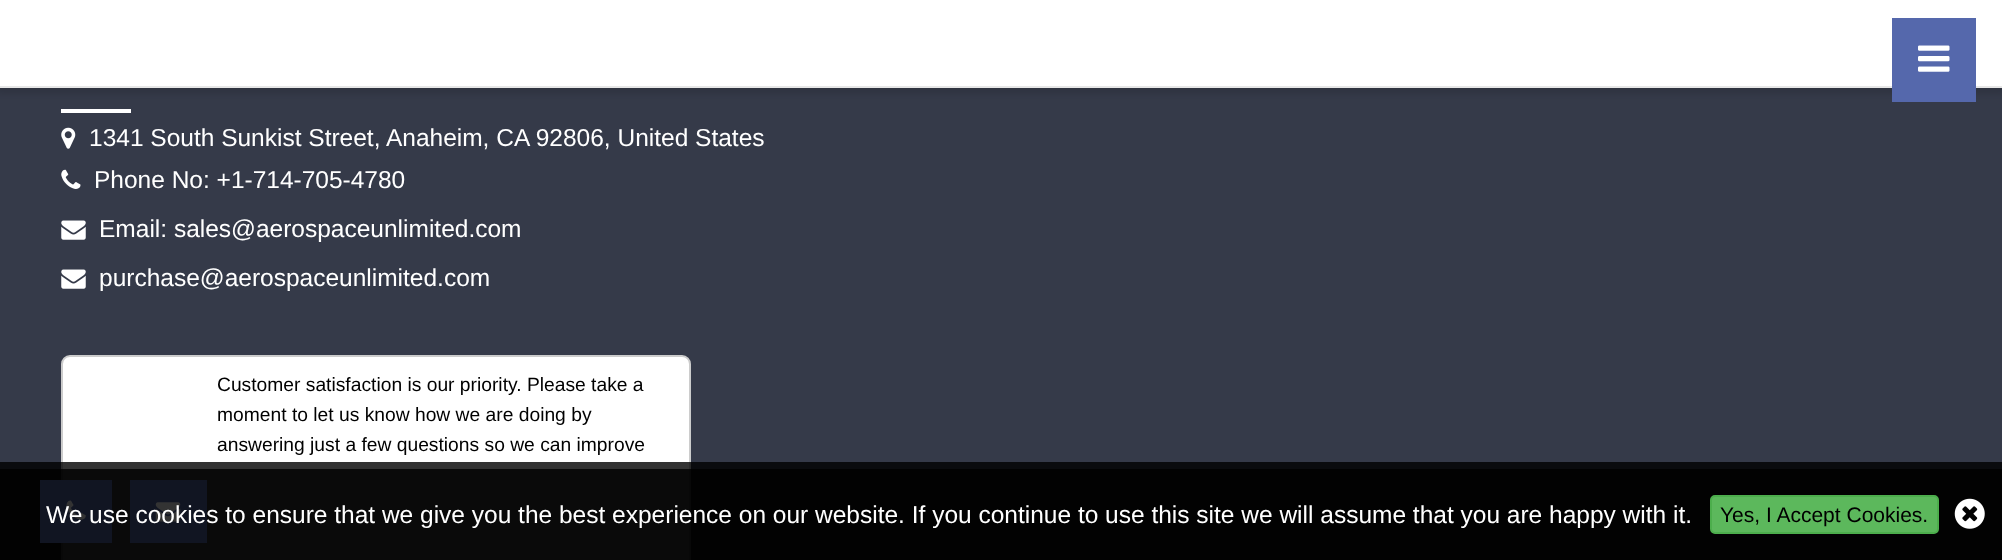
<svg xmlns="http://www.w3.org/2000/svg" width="2002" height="560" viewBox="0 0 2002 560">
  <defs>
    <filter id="blur1" x="-50%" y="-200%" width="200%" height="500%"><feGaussianBlur stdDeviation="4.5"/></filter>
  </defs>
  <rect width="100%" height="100%" fill="#353a49"/>
  <rect x="-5" y="-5" width="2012" height="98" fill="#000000" fill-opacity="0.14" filter="url(#blur1)"/>
  <rect x="0" y="0" width="2002" height="86" fill="#ffffff"/>
  <rect x="0" y="86" width="2002" height="2" fill="#e7e7e7"/>
  <rect x="1892" y="18" width="84" height="84" fill="#5568ac"/>
  <image x="1918" y="45" width="32" height="27" href="img1.png"/>
  <rect x="61" y="109" width="70" height="4" fill="#ffffff"/>
  <image x="61" y="127" width="15" height="22" href="img2.png"/>
  <text x="89" y="146" font-family="Liberation Sans" font-size="24.5" fill="#ffffff">1341 South Sunkist Street, Anaheim, CA 92806, United States</text>
  <image x="61" y="169" width="20" height="20" href="img3.png"/>
  <text x="94" y="188" font-family="Liberation Sans" font-size="24.5" fill="#ffffff">Phone No: +1-714-705-4780</text>
  <image x="61" y="220" width="25" height="20" href="img4.png"/>
  <text x="99" y="237" font-family="Liberation Sans" font-size="24.5" fill="#ffffff">Email: sales@aerospaceunlimited.com</text>
  <image x="61" y="269" width="25" height="20" href="img4.png"/>
  <text x="99" y="286" font-family="Liberation Sans" font-size="24.5" fill="#ffffff">purchase@aerospaceunlimited.com</text>
  <rect x="62" y="356" width="628" height="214" rx="8" fill="#ffffff" stroke="#cccccc" stroke-width="2"/>
  <text x="217" y="391" font-family="Liberation Sans" font-size="19.25" fill="#000000">Customer satisfaction is our priority. Please take a</text>
  <text x="217" y="421" font-family="Liberation Sans" font-size="19.25" fill="#000000">moment to let us know how we are doing by</text>
  <text x="217" y="451" font-family="Liberation Sans" font-size="19.25" fill="#000000">answering just a few questions so we can improve</text>
  <rect x="0" y="462" width="2002" height="98" fill="#000000" fill-opacity="0.8"/>
  <rect x="40" y="480" width="72" height="63" fill="#5568ac"/>
  <image x="66" y="500" width="20" height="20" href="img5.png"/>
  <rect x="130" y="480" width="77" height="63" fill="#5568ac"/>
  <image x="155" y="502" width="26" height="20" href="img6.png"/>
  <rect x="0" y="469" width="2002" height="91" fill="#000000" fill-opacity="0.8"/>
  <text x="46" y="523" font-family="Liberation Sans" font-size="24.5" fill="#ffffff">We use cookies to ensure that we give you the best experience on our website. If you continue to use this site we will assume that you are happy with it.</text>
  <rect x="1711" y="496" width="227" height="37" rx="4" fill="#5cb85c" stroke="#4cae4c" stroke-width="2"/>
  <text x="1720" y="522" font-family="Liberation Sans" font-size="21" fill="#000000">Yes, I Accept Cookies.</text>
  <image x="1954" y="498" width="31" height="31" href="img7.png"/>
</svg>
